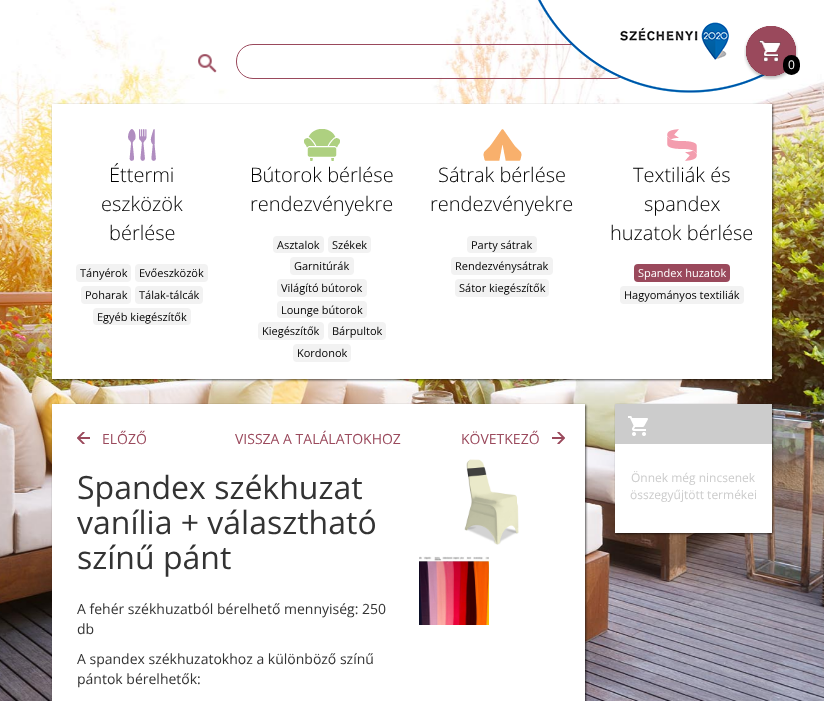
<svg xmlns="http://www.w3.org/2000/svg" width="824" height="701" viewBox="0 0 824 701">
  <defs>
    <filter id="blur1" x="-50%" y="-200%" width="200%" height="500%"><feGaussianBlur stdDeviation="1"/></filter>
  </defs>
  <rect width="100%" height="100%" fill="#ffffff"/>
  <image x="0" y="0" width="824" height="701" href="img1.png"/>
  <rect x="236.5" y="44.5" width="394" height="34" rx="16.5" fill="none" stroke="#9a495c"/>
  <image x="538" y="0" width="234" height="93" href="img2.png"/>
  <image x="198" y="54" width="19" height="19" href="img3.png"/>
  <image x="744" y="26" width="54" height="54" href="img4.png"/>
  <rect x="783" y="55" width="17" height="20" rx="8.5" fill="#000000"/>
  <text x="788" y="69" font-family="Open Sans" font-size="12" fill="#ffffff">0</text>
  <rect x="53" y="105" width="720" height="275" fill="#000000" fill-opacity="0.65" filter="url(#blur1)"/>
  <rect x="52" y="104" width="720" height="275" fill="#ffffff"/>
  <image x="128" y="129" width="28" height="32" href="img5.png"/>
  <text x="109" y="182" font-family="Open Sans" font-size="20" font-weight="300" fill="#000000">Éttermi</text>
  <text x="101" y="211" font-family="Open Sans" font-size="20" font-weight="300" fill="#000000">eszközök</text>
  <text x="109" y="240" font-family="Open Sans" font-size="20" font-weight="300" fill="#000000">bérlése</text>
  <rect x="76" y="264" width="55" height="18" rx="4" fill="#f2f2f2"/>
  <text x="80" y="277" font-family="Open Sans" font-size="11" fill="#000000">Tányérok</text>
  <rect x="135" y="264" width="73" height="18" rx="4" fill="#f2f2f2"/>
  <text x="139" y="277" font-family="Open Sans" font-size="11" fill="#000000">Evőeszközök</text>
  <rect x="81" y="286" width="50" height="18" rx="4" fill="#f2f2f2"/>
  <text x="85" y="299" font-family="Open Sans" font-size="11" fill="#000000">Poharak</text>
  <rect x="135" y="286" width="68" height="18" rx="4" fill="#f2f2f2"/>
  <text x="139" y="299" font-family="Open Sans" font-size="11" fill="#000000">Tálak-tálcák</text>
  <rect x="93" y="308" width="98" height="17" rx="4" fill="#f2f2f2"/>
  <text x="97" y="321" font-family="Open Sans" font-size="11" fill="#000000">Egyéb kiegészítők</text>
  <image x="304" y="129" width="36" height="32" href="img6.png"/>
  <text x="250" y="182" font-family="Open Sans" font-size="20" font-weight="300" fill="#000000">Bútorok bérlése</text>
  <text x="250" y="211" font-family="Open Sans" font-size="20" font-weight="300" fill="#000000">rendezvényekre</text>
  <rect x="273" y="236" width="51" height="17" rx="4" fill="#f2f2f2"/>
  <text x="277" y="249" font-family="Open Sans" font-size="11" fill="#000000">Asztalok</text>
  <rect x="328" y="236" width="43" height="17" rx="4" fill="#f2f2f2"/>
  <text x="332" y="249" font-family="Open Sans" font-size="11" fill="#000000">Székek</text>
  <rect x="290" y="257" width="64" height="18" rx="4" fill="#f2f2f2"/>
  <text x="294" y="270" font-family="Open Sans" font-size="11" fill="#000000">Garnitúrák</text>
  <rect x="277" y="279" width="90" height="18" rx="4" fill="#f2f2f2"/>
  <text x="281" y="292" font-family="Open Sans" font-size="11" fill="#000000">Világító bútorok</text>
  <rect x="277" y="301" width="90" height="17" rx="4" fill="#f2f2f2"/>
  <text x="281" y="314" font-family="Open Sans" font-size="11" fill="#000000">Lounge bútorok</text>
  <rect x="258" y="322" width="66" height="18" rx="4" fill="#f2f2f2"/>
  <text x="262" y="335" font-family="Open Sans" font-size="11" fill="#000000">Kiegészítők</text>
  <rect x="328" y="322" width="58" height="18" rx="4" fill="#f2f2f2"/>
  <text x="332" y="335" font-family="Open Sans" font-size="11" fill="#000000">Bárpultok</text>
  <rect x="293" y="344" width="58" height="18" rx="4" fill="#f2f2f2"/>
  <text x="297" y="357" font-family="Open Sans" font-size="11" fill="#000000">Kordonok</text>
  <image x="483" y="129" width="39" height="32" href="img7.png"/>
  <text x="438" y="182" font-family="Open Sans" font-size="20" font-weight="300" fill="#000000">Sátrak bérlése</text>
  <text x="430" y="211" font-family="Open Sans" font-size="20" font-weight="300" fill="#000000">rendezvényekre</text>
  <rect x="467" y="236" width="70" height="17" rx="4" fill="#f2f2f2"/>
  <text x="471" y="249" font-family="Open Sans" font-size="11" fill="#000000">Party sátrak</text>
  <rect x="451" y="257" width="102" height="18" rx="4" fill="#f2f2f2"/>
  <text x="455" y="270" font-family="Open Sans" font-size="11" fill="#000000">Rendezvénysátrak</text>
  <rect x="455" y="279" width="94" height="18" rx="4" fill="#f2f2f2"/>
  <text x="459" y="292" font-family="Open Sans" font-size="11" fill="#000000">Sátor kiegészítők</text>
  <image x="667" y="129" width="30" height="32" href="img8.png"/>
  <text x="633" y="182" font-family="Open Sans" font-size="20" font-weight="300" fill="#000000">Textiliák és</text>
  <text x="644" y="211" font-family="Open Sans" font-size="20" font-weight="300" fill="#000000">spandex</text>
  <text x="610" y="240" font-family="Open Sans" font-size="20" font-weight="300" fill="#000000">huzatok bérlése</text>
  <rect x="634" y="264" width="96" height="18" rx="4" fill="#9a495c"/>
  <text x="638" y="277" font-family="Open Sans" font-size="11" fill="#ffffff">Spandex huzatok</text>
  <rect x="620" y="286" width="124" height="18" rx="4" fill="#f2f2f2"/>
  <text x="624" y="299" font-family="Open Sans" font-size="11" fill="#000000">Hagyományos textiliák</text>
  <rect x="53" y="405" width="533" height="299" fill="#000000" fill-opacity="0.65" filter="url(#blur1)"/>
  <rect x="52" y="404" width="533" height="297" fill="#ffffff"/>
  <image x="77" y="432" width="13" height="12" href="img9.png"/>
  <text x="102" y="444" font-family="Open Sans" font-size="14" fill="#9a495c">ELŐZŐ</text>
  <text x="235" y="444" font-family="Open Sans" font-size="14" fill="#9a495c">VISSZA A TALÁLATOKHOZ</text>
  <text x="461" y="444" font-family="Open Sans" font-size="14" fill="#9a495c">KÖVETKEZŐ</text>
  <image x="552" y="432" width="13" height="12" href="img10.png"/>
  <text x="77" y="499" font-family="Open Sans" font-size="32" fill="#333333">Spandex székhuzat</text>
  <text x="77" y="534" font-family="Open Sans" font-size="32" fill="#333333">vanília + választható</text>
  <text x="77" y="569" font-family="Open Sans" font-size="32" fill="#333333">színű pánt</text>
  <text x="77" y="614" font-family="Open Sans" font-size="14" fill="#333333">A fehér székhuzatból bérelhető mennyiség: 250</text>
  <text x="77" y="634" font-family="Open Sans" font-size="14" fill="#333333">db</text>
  <text x="77" y="664" font-family="Open Sans" font-size="14" fill="#333333">A spandex székhuzatokhoz a különböző színű</text>
  <text x="77" y="684" font-family="Open Sans" font-size="14" fill="#333333">pántok bérelhetők:</text>
  <image x="464" y="459" width="55" height="86" href="img11.png"/>
  <image x="419" y="556" width="70" height="69" href="img12.png"/>
  <rect x="616" y="405" width="157" height="129" fill="#000000" fill-opacity="0.65" filter="url(#blur1)"/>
  <rect x="615" y="444" width="157" height="89" fill="#ffffff"/>
  <rect x="615" y="404" width="157" height="40" fill="#cccccc"/>
  <image x="628" y="416" width="20" height="20" href="img13.png"/>
  <text x="631" y="482" font-family="Open Sans" font-size="12" fill="#cccccc">Önnek még nincsenek</text>
  <text x="630" y="499" font-family="Open Sans" font-size="12" fill="#cccccc">összegyűjtött termékei</text>
</svg>
